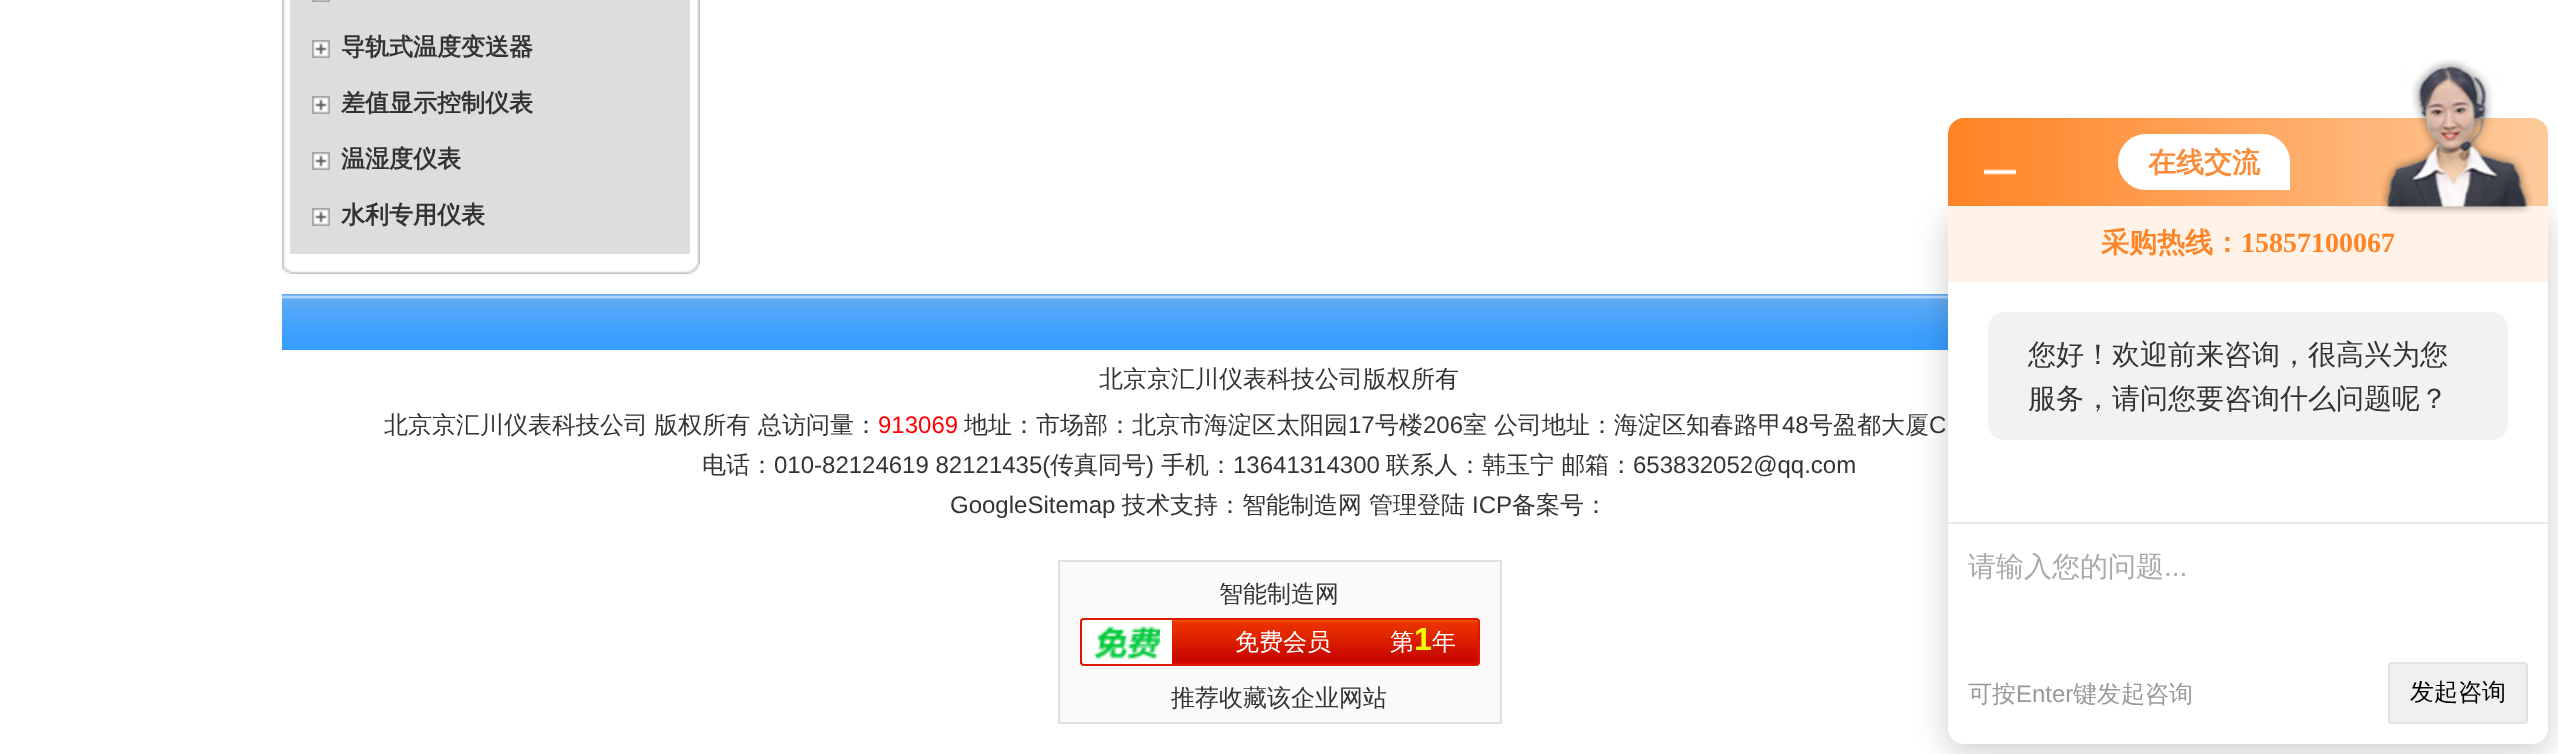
<svg xmlns="http://www.w3.org/2000/svg" width="2558" height="754" viewBox="0 0 2558 754">
  <defs>
    <filter id="blur1" x="-50%" y="-200%" width="200%" height="500%"><feGaussianBlur stdDeviation="16"/></filter>
    <linearGradient id="g1" gradientUnits="userSpaceOnUse" x1="1948" y1="162" x2="2548" y2="162"><stop offset="0" stop-color="#ff8324"/><stop offset="1" stop-color="#fecb9c"/></linearGradient>
  </defs>
  <rect width="100%" height="100%" fill="#ffffff"/>
  <image x="282" y="0" width="418" height="264" href="img1.png"/>
  <rect x="290" y="0" width="400" height="254" fill="#dddddd"/>
  <image x="312" y="0" width="18" height="2" href="img2.png"/>
  <image x="312" y="40" width="18" height="18" href="img3.png"/>
  <text x="341" y="55" font-family="WenQuanYi Zen Hei" font-size="24" font-weight="bold" fill="#333333">导轨式温度变送器</text>
  <image x="312" y="96" width="18" height="18" href="img3.png"/>
  <text x="341" y="111" font-family="WenQuanYi Zen Hei" font-size="24" font-weight="bold" fill="#333333">差值显示控制仪表</text>
  <image x="312" y="152" width="18" height="18" href="img3.png"/>
  <text x="341" y="167" font-family="WenQuanYi Zen Hei" font-size="24" font-weight="bold" fill="#333333">温湿度仪表</text>
  <image x="312" y="208" width="18" height="18" href="img3.png"/>
  <text x="341" y="223" font-family="WenQuanYi Zen Hei" font-size="24" font-weight="bold" fill="#333333">水利专用仪表</text>
  <image x="282" y="264" width="418" height="10" href="img4.png"/>
  <image x="282" y="294" width="1666" height="56" href="img7.png"/>
  <rect x="1948" y="214" width="600" height="538" rx="16" fill="#000000" fill-opacity="0.2" filter="url(#blur1)"/>
  <path d="M1964 118H2532C2541 118 2548 125 2548 134V206H1948V134C1948 125 1955 118 1964 118Z" fill="url(#g1)"/>
  <image x="1984" y="169" width="32" height="6" href="img5.png"/>
  <path d="M2146 134H2262C2277.5 134 2290 146.5 2290 162V190H2146C2130.5 190 2118 177.5 2118 162C2118 146.5 2130.5 134 2146 134Z" fill="#ffffff"/>
  <text x="2148" y="172" font-family="WenQuanYi Zen Hei" font-size="28" font-weight="bold" fill="#fb8b36">在线交流</text>
  <path d="M1948 206H2548V728C2548 737 2541 744 2532 744H1964C1955 744 1948 737 1948 728Z" fill="#ffffff"/>
  <rect x="1948" y="206" width="600" height="76" fill="#fff3e9"/>
  <image x="2381" y="59" width="152" height="155" href="img6.png"/>
  <text x="2101" y="252" font-family="WenQuanYi Zen Hei" font-size="28" font-weight="bold" fill="#ff8426">采购热线：</text>
  <text x="2241" y="252" font-family="Liberation Serif" font-size="28" font-weight="bold" fill="#ff8426">15857100067</text>
  <rect x="1988" y="312" width="520" height="128" rx="16" fill="#f2f2f2"/>
  <text x="2028" y="364" font-family="WenQuanYi Zen Hei" font-size="28" font-weight="500" fill="#333333">您好！欢迎前来咨询，很高兴为您</text>
  <text x="2028" y="408" font-family="WenQuanYi Zen Hei" font-size="28" font-weight="500" fill="#333333">服务，请问您要咨询什么问题呢？</text>
  <rect x="1948" y="522" width="600" height="2" fill="#eaeaea"/>
  <text x="1968" y="576" font-family="WenQuanYi Zen Hei" font-size="28" font-weight="500" fill="#aaaaaa">请输入您的问题</text>
  <text x="2164" y="576" font-family="Liberation Sans" font-size="28" fill="#aaaaaa">...</text>
  <text x="1968" y="702" font-family="WenQuanYi Zen Hei" font-size="24" font-weight="500" fill="#999999">可按</text>
  <text x="2016" y="702" font-family="Liberation Sans" font-size="24" fill="#999999">Enter</text>
  <text x="2073" y="702" font-family="WenQuanYi Zen Hei" font-size="24" font-weight="500" fill="#999999">键发起咨询</text>
  <rect x="2389" y="663" width="138" height="60" rx="3" fill="#f0efed" stroke="#e2e2e2" stroke-width="2"/>
  <text x="2410" y="700" font-family="WenQuanYi Zen Hei" font-size="24" font-weight="500" fill="#000000">发起咨询</text>
  <text x="1099" y="387" font-family="WenQuanYi Zen Hei" font-size="24" font-weight="500" fill="#333333">北京京汇川仪表科技公司版权所有</text>
  <text x="384" y="433" word-spacing="-1" font-family="WenQuanYi Zen Hei" font-size="24" font-weight="500" fill="#333333">北京京汇川仪表科技公司 版权所有</text>
  <text x="758" y="433" font-family="WenQuanYi Zen Hei" font-size="24" font-weight="500" fill="#333333">总访问量：</text>
  <text x="878" y="433" font-family="Liberation Sans" font-size="24" fill="#ff0000">913069</text>
  <text x="964" y="433" font-family="WenQuanYi Zen Hei" font-size="24" font-weight="500" fill="#333333">地址：市场部：北京市海淀区太阳园</text>
  <text x="1348" y="433" font-family="Liberation Sans" font-size="24" fill="#333333">17</text>
  <text x="1375" y="433" font-family="WenQuanYi Zen Hei" font-size="24" font-weight="500" fill="#333333">号楼</text>
  <text x="1423" y="433" font-family="Liberation Sans" font-size="24" fill="#333333">206</text>
  <text x="1463" y="433" font-family="WenQuanYi Zen Hei" font-size="24" font-weight="500" fill="#333333">室</text>
  <text x="1494" y="433" font-family="WenQuanYi Zen Hei" font-size="24" font-weight="500" fill="#333333">公司地址：海淀区知春路甲</text>
  <text x="1782" y="433" font-family="Liberation Sans" font-size="24" fill="#333333">48</text>
  <text x="1809" y="433" font-family="WenQuanYi Zen Hei" font-size="24" font-weight="500" fill="#333333">号盈都大厦</text>
  <text x="1929" y="433" font-family="Liberation Sans" font-size="24" fill="#333333">C</text>
  <text x="702" y="473" font-family="WenQuanYi Zen Hei" font-size="24" font-weight="500" fill="#333333">电话：</text>
  <text x="774" y="473" font-family="Liberation Sans" font-size="24" fill="#333333">010-82124619 82121435(</text>
  <text x="1050" y="473" font-family="WenQuanYi Zen Hei" font-size="24" font-weight="500" fill="#333333">传真同号</text>
  <text x="1146" y="473" font-family="Liberation Sans" font-size="24" fill="#333333">)</text>
  <text x="1161" y="473" font-family="WenQuanYi Zen Hei" font-size="24" font-weight="500" fill="#333333">手机：</text>
  <text x="1233" y="473" font-family="Liberation Sans" font-size="24" fill="#333333">13641314300</text>
  <text x="1386" y="473" font-family="WenQuanYi Zen Hei" font-size="24" font-weight="500" fill="#333333">联系人：韩玉宁 邮箱：</text>
  <text x="1633" y="473" font-family="Liberation Sans" font-size="24" fill="#333333">653832052@qq.com</text>
  <text x="950" y="513" font-family="Liberation Sans" font-size="24" fill="#333333">GoogleSitemap</text>
  <text x="1122" y="513" font-family="WenQuanYi Zen Hei" font-size="24" font-weight="500" fill="#333333">技术支持：智能制造网</text>
  <text x="1369" y="513" font-family="WenQuanYi Zen Hei" font-size="24" font-weight="500" fill="#333333">管理登陆</text>
  <text x="1472" y="513" font-family="Liberation Sans" font-size="24" fill="#333333">ICP</text>
  <text x="1512" y="513" font-family="WenQuanYi Zen Hei" font-size="24" font-weight="500" fill="#333333">备案号：</text>
  <rect x="1059" y="561" width="442" height="162" fill="#fafafa" stroke="#dfdfdf" stroke-width="2"/>
  <text x="1219" y="602" font-family="WenQuanYi Zen Hei" font-size="24" font-weight="500" fill="#333333">智能制造网</text>
  <image x="1080" y="620" width="400" height="44" href="img8.png"/>
  <rect x="1081" y="619" width="398" height="46" rx="3" fill="none" stroke="#df1700" stroke-width="2"/>
  <path d="M1084 620H1172V664H1084C1083 664 1082 663 1082 662V622C1082 621 1083 620 1084 620Z" fill="#ffffff"/>
  <image x="1094" y="626" width="66" height="34" href="img9.png"/>
  <text x="1235" y="650" font-family="WenQuanYi Zen Hei" font-size="24" font-weight="500" fill="#ffffff">免费会员</text>
  <text x="1390" y="650" font-family="WenQuanYi Zen Hei" font-size="24" font-weight="500" fill="#ffffff">第</text>
  <text x="1414" y="650" font-family="Liberation Sans" font-size="32" font-weight="bold" fill="#fcff00">1</text>
  <text x="1432" y="650" font-family="WenQuanYi Zen Hei" font-size="24" font-weight="500" fill="#ffffff">年</text>
  <text x="1171" y="706" font-family="WenQuanYi Zen Hei" font-size="24" font-weight="500" fill="#333333">推荐收藏该企业网站</text>
</svg>
